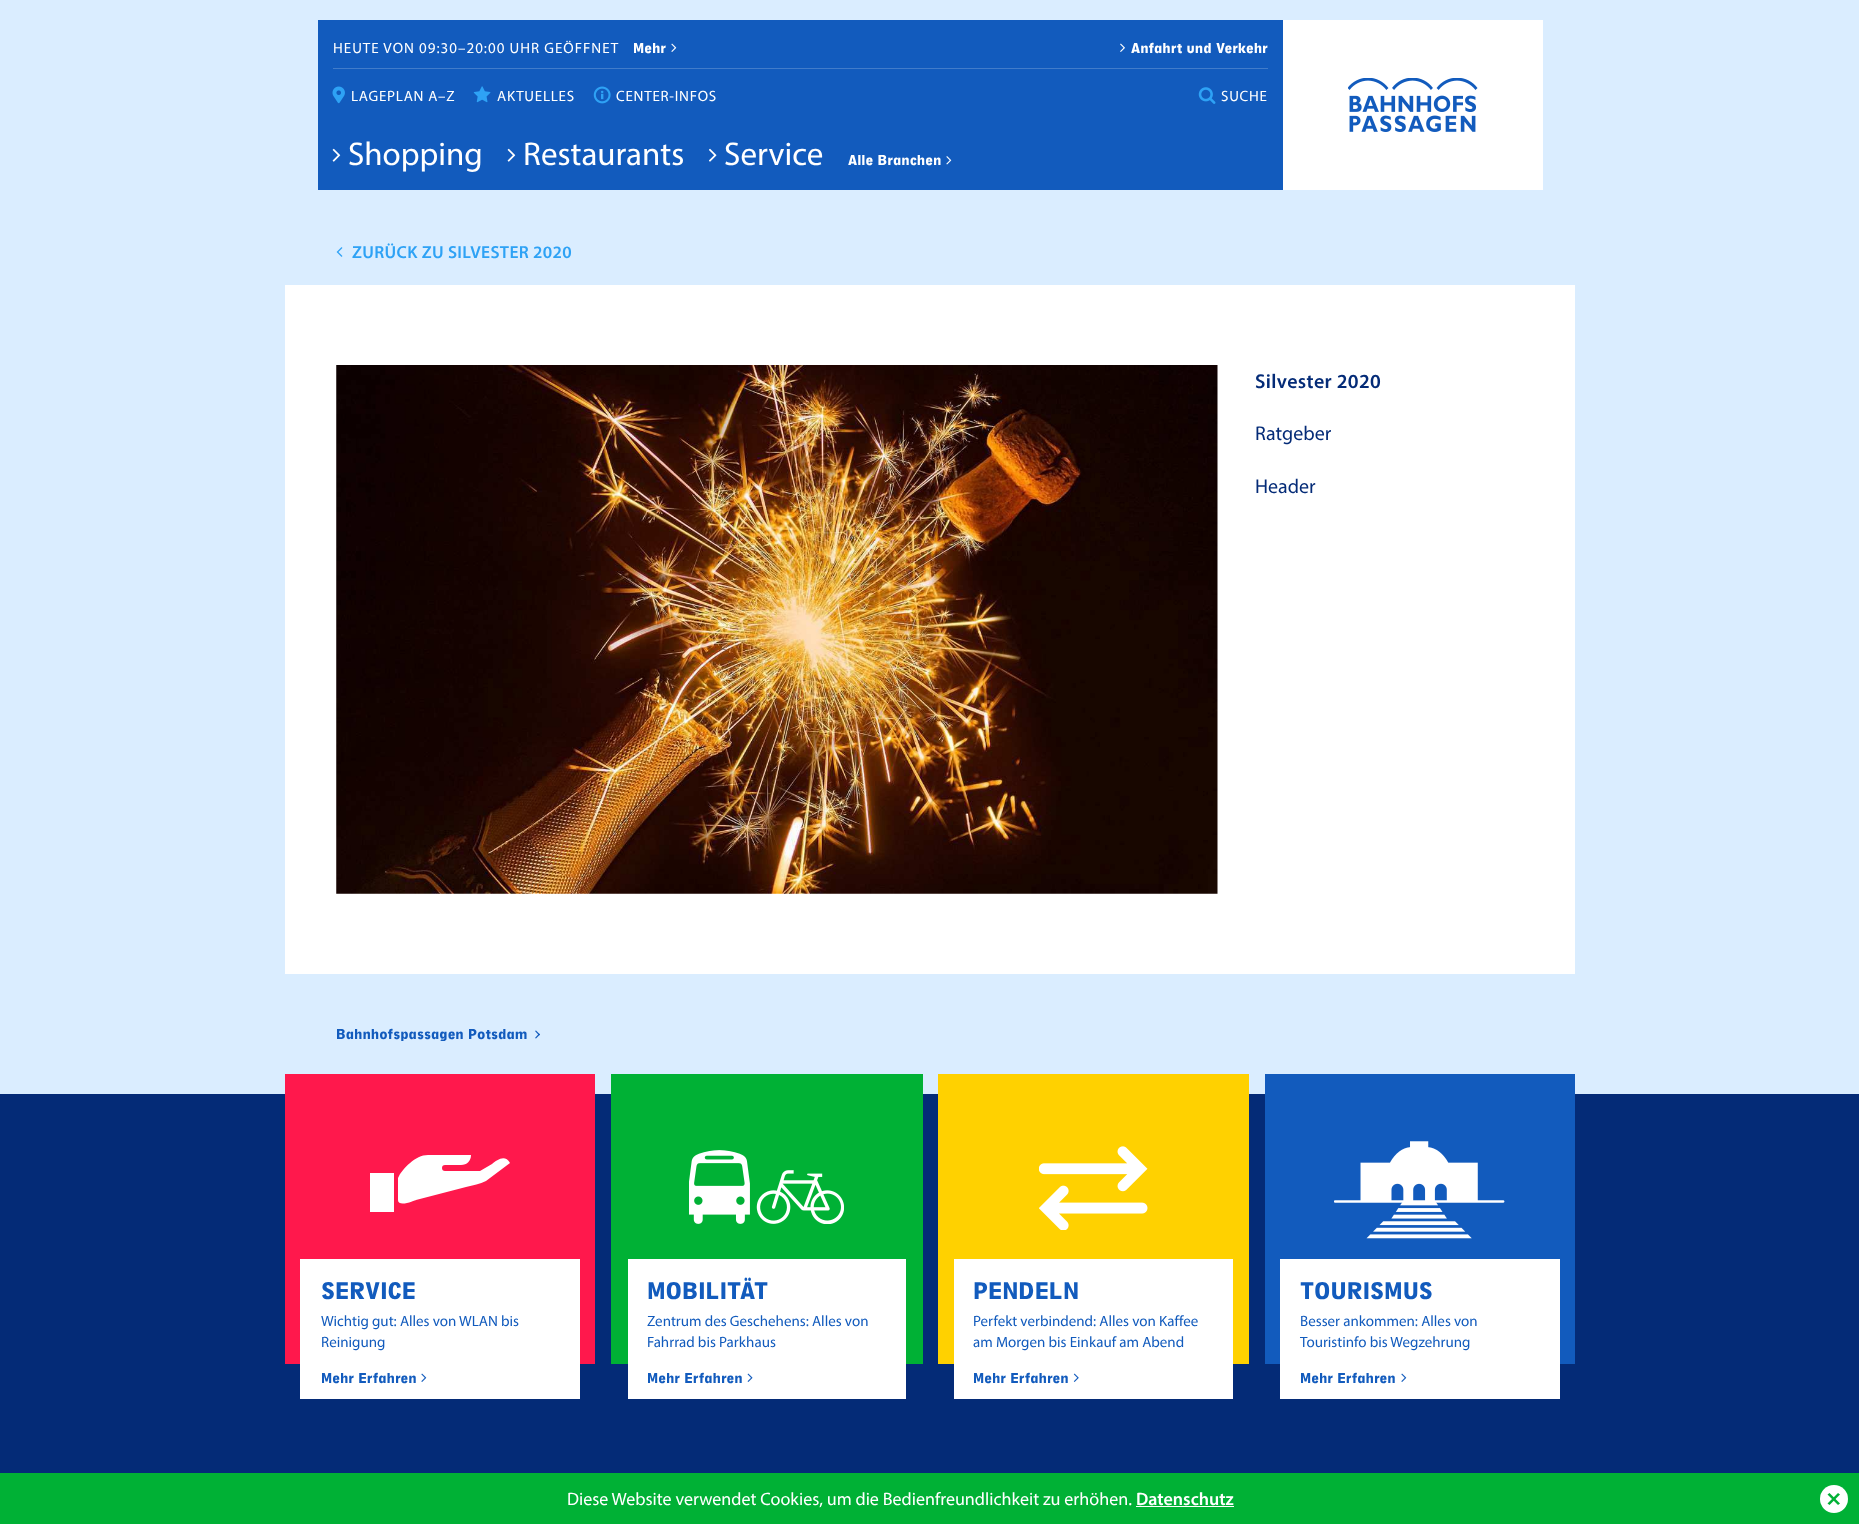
<svg xmlns="http://www.w3.org/2000/svg" width="1859" height="1524" viewBox="0 0 1859 1524">
  <rect width="100%" height="100%" fill="#daedff"/>
  <rect x="318" y="20" width="965" height="170" fill="#125bbd"/>
  <rect x="333" y="68" width="935" height="1" fill="#417cca"/>
  <text x="333" y="53" font-family="Myriad" font-size="15" letter-spacing="1" fill="#ffffff">HEUTE VON 09:30–20:00 UHR GEÖFFNET</text>
  <text x="633" y="53" font-family="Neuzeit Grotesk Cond" font-size="15" font-weight="900" fill="#ffffff">Mehr</text>
  <image x="671" y="43" width="6" height="9" href="img1.png"/>
  <image x="1120" y="43" width="5" height="9" href="img2.png"/>
  <text x="1131" y="53" font-family="Neuzeit Grotesk Cond" font-size="15" font-weight="900" fill="#ffffff">Anfahrt und Verkehr</text>
  <image x="332" y="86" width="13" height="18" href="img3.png"/>
  <text x="351" y="101" font-family="Myriad" font-size="15" letter-spacing="0.75" fill="#ffffff">LAGEPLAN A–Z</text>
  <image x="473" y="86" width="18" height="17" href="img4.png"/>
  <text x="497" y="101" font-family="Myriad" font-size="15" letter-spacing="0.75" fill="#ffffff">AKTUELLES</text>
  <image x="593" y="86" width="18" height="18" href="img5.png"/>
  <text x="616" y="101" font-family="Myriad" font-size="15" letter-spacing="0.75" fill="#ffffff">CENTER-INFOS</text>
  <image x="1198" y="87" width="18" height="17" href="img6.png"/>
  <text x="1221" y="101" font-family="Myriad" font-size="15" letter-spacing="0.75" fill="#ffffff">SUCHE</text>
  <image x="332" y="148" width="9" height="14" href="img7.png"/>
  <text x="348" y="165" font-family="Myriad" font-size="33" fill="#ffffff">Shopping</text>
  <image x="507" y="148" width="9" height="14" href="img7.png"/>
  <text x="523" y="165" font-family="Myriad" font-size="33" fill="#ffffff">Restaurants</text>
  <image x="709" y="148" width="8" height="14" href="img8.png"/>
  <text x="724" y="165" font-family="Myriad" font-size="33" fill="#ffffff">Service</text>
  <text x="848" y="165" font-family="Neuzeit Grotesk Cond" font-size="15" font-weight="900" fill="#ffffff">Alle Branchen</text>
  <image x="946" y="156" width="6" height="9" href="img9.png"/>
  <rect x="1283" y="20" width="260" height="170" fill="#ffffff"/>
  <image x="1348" y="78" width="130" height="54" href="img10.png"/>
  <image x="336" y="247" width="7" height="10" href="img11.png"/>
  <text x="352" y="258" font-family="Myriad" font-size="17.5" font-weight="600" letter-spacing="0.35" fill="#2ea2f5">ZURÜCK ZU SILVESTER 2020</text>
  <rect x="285" y="285" width="1290" height="689" fill="#ffffff"/>
  <image x="336" y="365" width="882" height="529" href="img12.png"/>
  <text x="1255" y="388" font-family="Myriad" font-size="20" font-weight="600" letter-spacing="0.4" fill="#042b77">Silvester 2020</text>
  <text x="1255" y="440" font-family="Myriad" font-size="20" fill="#042b77">Ratgeber</text>
  <text x="1255" y="493" font-family="Myriad" font-size="20" fill="#042b77">Header</text>
  <text x="336" y="1039" font-family="Neuzeit Grotesk Cond" font-size="15" font-weight="900" fill="#125bbd">Bahnhofspassagen Potsdam</text>
  <path d="M536 1030.5L540 1034.5L539 1035.5L535 1031Z" fill="#125bbd"/>
  <path d="M539 1033.5L540 1034.5L536 1038.5L535 1038Z" fill="#125bbd"/>
  <rect x="0" y="1094" width="1859" height="379" fill="#042b77"/>
  <rect x="285" y="1074" width="310" height="290" fill="#ff184c"/>
  <path d="M398 1178L399 1176C403 1169 415 1155 428 1155H471C471 1161 467 1165 461 1165H445C443 1165 442 1166 442 1168C442 1170 443 1171 445 1171H480L492 1164C497 1160 505 1154 510 1163L486 1181C480 1184 473 1185 466 1187L416 1200C416 1200 398 1208 398 1200Z" fill="#ffffff"/>
  <rect x="370" y="1173" width="24" height="39" fill="#ffffff"/>
  <rect x="300" y="1259" width="280" height="140" fill="#ffffff"/>
  <text x="321" y="1299" font-family="Neuzeit Grotesk Cond" font-size="25" font-weight="900" fill="#125bbd">SERVICE</text>
  <text x="321" y="1326" font-family="Myriad" font-size="15" fill="#125bbd">Wichtig gut: Alles von WLAN bis</text>
  <text x="321" y="1347" font-family="Myriad" font-size="15" fill="#125bbd">Reinigung</text>
  <text x="321" y="1383" font-family="Neuzeit Grotesk Cond" font-size="15" font-weight="900" fill="#125bbd">Mehr Erfahren</text>
  <image x="421" y="1373" width="6" height="9" href="img13.png"/>
  <rect x="611" y="1074" width="312" height="290" fill="#00b135"/>
  <image x="689" y="1150" width="155" height="74" href="img14.png"/>
  <rect x="628" y="1259" width="278" height="140" fill="#ffffff"/>
  <text x="647" y="1299" font-family="Neuzeit Grotesk Cond" font-size="25" font-weight="900" fill="#125bbd">MOBILITÄT</text>
  <text x="647" y="1326" font-family="Myriad" font-size="15" fill="#125bbd">Zentrum des Geschehens: Alles von</text>
  <text x="647" y="1347" font-family="Myriad" font-size="15" fill="#125bbd">Fahrrad bis Parkhaus</text>
  <text x="647" y="1383" font-family="Neuzeit Grotesk Cond" font-size="15" font-weight="900" fill="#125bbd">Mehr Erfahren</text>
  <image x="747" y="1373" width="6" height="9" href="img15.png"/>
  <rect x="938" y="1074" width="311" height="290" fill="#ffd100"/>
  <image x="1039" y="1146" width="109" height="84" href="img16.png"/>
  <rect x="954" y="1259" width="279" height="140" fill="#ffffff"/>
  <text x="973" y="1299" font-family="Neuzeit Grotesk Cond" font-size="25" font-weight="900" fill="#125bbd">PENDELN</text>
  <text x="973" y="1326" font-family="Myriad" font-size="15" fill="#125bbd">Perfekt verbindend: Alles von Kaffee</text>
  <text x="973" y="1347" font-family="Myriad" font-size="15" fill="#125bbd">am Morgen bis Einkauf am Abend</text>
  <text x="973" y="1383" font-family="Neuzeit Grotesk Cond" font-size="15" font-weight="900" fill="#125bbd">Mehr Erfahren</text>
  <image x="1073" y="1373" width="6" height="9" href="img17.png"/>
  <rect x="1265" y="1074" width="310" height="290" fill="#125bbd"/>
  <image x="1334" y="1141" width="171" height="98" href="img18.png"/>
  <rect x="1280" y="1259" width="280" height="140" fill="#ffffff"/>
  <text x="1300" y="1299" font-family="Neuzeit Grotesk Cond" font-size="25" font-weight="900" fill="#125bbd">TOURISMUS</text>
  <text x="1300" y="1326" font-family="Myriad" font-size="15" fill="#125bbd">Besser ankommen: Alles von</text>
  <text x="1300" y="1347" font-family="Myriad" font-size="15" fill="#125bbd">Touristinfo bis Wegzehrung</text>
  <text x="1300" y="1383" font-family="Neuzeit Grotesk Cond" font-size="15" font-weight="900" fill="#125bbd">Mehr Erfahren</text>
  <image x="1401" y="1373" width="6" height="9" href="img13.png"/>
  <rect x="0" y="1473" width="1859" height="51" fill="#00b135"/>
  <text x="567" y="1505" font-family="Myriad" font-size="18" fill="#ffffff">Diese Website verwendet Cookies, um die Bedienfreundlichkeit zu erhöhen.</text>
  <text x="1136" y="1505" font-family="Myriad" font-size="18" font-weight="600" fill="#ffffff">Datenschutz</text>
  <rect x="1136" y="1506" width="98" height="1" fill="#ffffff"/>
  <circle cx="1834" cy="1499" r="14" fill="#ffffff"/>
  <path d="M1829.5 1493L1840 1503.5L1838 1505L1827.5 1494.5Z" fill="#00b135"/>
  <path d="M1827.5 1503.5L1838 1493L1840 1494.5L1829.5 1505Z" fill="#00b135"/>
</svg>
